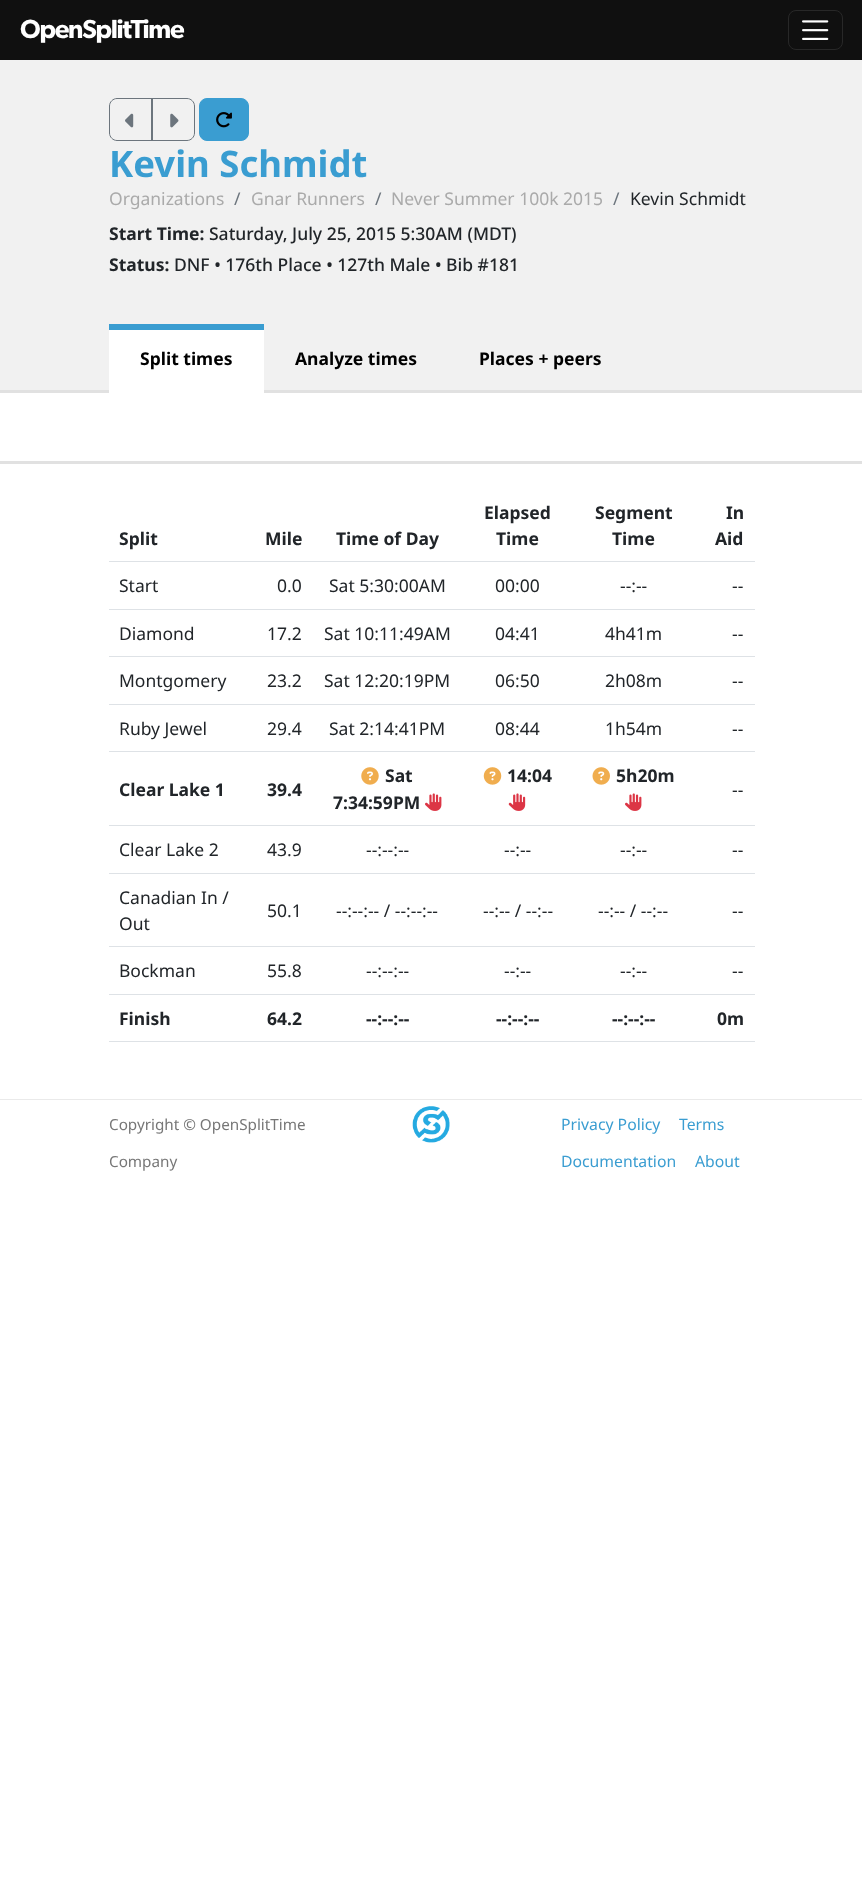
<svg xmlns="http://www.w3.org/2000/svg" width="862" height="1891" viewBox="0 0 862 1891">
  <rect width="100%" height="100%" fill="#ffffff"/>
  <rect x="0" y="0" width="862" height="60" fill="#101010"/>
  <text x="20" y="38" font-family="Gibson" font-size="26.25" font-weight="600" letter-spacing="-1.25" fill="#ffffff">OpenSplitTime</text>
  <rect x="788.5" y="10.5" width="54" height="39" rx="7.5" fill="none" stroke="#282828"/>
  <image x="802" y="20" width="27" height="20" href="img1.png"/>
  <rect x="0" y="60" width="862" height="330" fill="#f1f1f1"/>
  <rect x="0" y="390" width="862" height="3" fill="#e1e1e1"/>
  <path d="M117 98.5H152.5V140.5H117C113 140.5 109.5 137 109.5 133V106C109.5 102 113 98.5 117 98.5Z" fill="none" stroke="#6c757d"/>
  <image x="125" y="113" width="9" height="15" href="img2.png"/>
  <path d="M151.5 98.5H187C191 98.5 194.5 102 194.5 106V133C194.5 137 191 140.5 187 140.5H151.5Z" fill="none" stroke="#6c757d"/>
  <image x="170" y="113" width="9" height="15" href="img3.png"/>
  <rect x="199.5" y="98.5" width="49" height="42" rx="7.5" fill="#3a9dd1" stroke="#3a9dd1"/>
  <image x="216" y="112" width="16" height="16" href="img4.png"/>
  <text x="109" y="177" font-family="Noto Sans" font-size="36.5" font-weight="bold" fill="#3a9dd1">Kevin Schmidt</text>
  <text x="109" y="205" font-family="Noto Sans" font-size="17.5" fill="#aaaaaa">Organizations</text>
  <text x="234" y="205" font-family="Noto Sans" font-size="17.5" fill="#6c757d">/</text>
  <text x="251" y="205" font-family="Noto Sans" font-size="17.5" fill="#aaaaaa">Gnar Runners</text>
  <text x="375" y="205" font-family="Noto Sans" font-size="17.5" fill="#6c757d">/</text>
  <text x="391" y="205" font-family="Noto Sans" font-size="17.5" fill="#aaaaaa">Never Summer 100k 2015</text>
  <text x="613" y="205" font-family="Noto Sans" font-size="17.5" fill="#6c757d">/</text>
  <text x="630" y="205" font-family="Noto Sans" font-size="17.5" fill="#212529">Kevin Schmidt</text>
  <text x="109" y="240" font-family="Noto Sans" font-size="17.5" font-weight="bold" fill="#212529">Start Time:</text>
  <text x="209" y="240" font-family="Noto Sans" font-size="17.5" font-weight="500" fill="#212529">Saturday, July 25, 2015 5:30AM (MDT)</text>
  <text x="109" y="271" font-family="Noto Sans" font-size="17.5" font-weight="bold" fill="#212529">Status:</text>
  <text x="174" y="271" font-family="Noto Sans" font-size="17.5" font-weight="500" fill="#212529">DNF • 176th Place • 127th Male • Bib #181</text>
  <rect x="109" y="330" width="155" height="63" fill="#ffffff"/>
  <rect x="109" y="324" width="155" height="6" fill="#3a9dd1"/>
  <text x="140" y="365" font-family="Noto Sans" font-size="17.5" font-weight="bold" fill="#000000">Split times</text>
  <text x="295" y="365" font-family="Noto Sans" font-size="17.5" font-weight="bold" fill="#000000">Analyze times</text>
  <text x="479" y="365" font-family="Noto Sans" font-size="17.5" font-weight="bold" fill="#000000">Places + peers</text>
  <rect x="0" y="461" width="862" height="3" fill="#e1e1e1"/>
  <text x="119" y="545" font-family="Noto Sans" font-size="17.5" font-weight="bold" fill="#212529">Split</text>
  <text x="265" y="545" font-family="Noto Sans" font-size="17.5" font-weight="bold" fill="#212529">Mile</text>
  <text x="336" y="545" font-family="Noto Sans" font-size="17.5" font-weight="bold" fill="#212529">Time of Day</text>
  <text x="484" y="519" font-family="Noto Sans" font-size="17.5" font-weight="bold" fill="#212529">Elapsed</text>
  <text x="496" y="545" font-family="Noto Sans" font-size="17.5" font-weight="bold" fill="#212529">Time</text>
  <text x="595" y="519" font-family="Noto Sans" font-size="17.5" font-weight="bold" fill="#212529">Segment</text>
  <text x="612" y="545" font-family="Noto Sans" font-size="17.5" font-weight="bold" fill="#212529">Time</text>
  <rect x="109" y="561" width="646" height="1" fill="#dee2e6"/>
  <text x="726" y="519" font-family="Noto Sans" font-size="17.5" font-weight="bold" fill="#212529">In</text>
  <text x="715" y="545" font-family="Noto Sans" font-size="17.5" font-weight="bold" fill="#212529">Aid</text>
  <text x="119" y="592" font-family="Noto Sans" font-size="17.5" fill="#212529">Start</text>
  <text x="277" y="592" font-family="Noto Sans" font-size="17.5" fill="#212529">0.0</text>
  <text x="329" y="592" font-family="Noto Sans" font-size="17.5" fill="#212529">Sat 5:30:00AM</text>
  <text x="495" y="592" font-family="Noto Sans" font-size="17.5" fill="#212529">00:00</text>
  <text x="620" y="592" font-family="Noto Sans" font-size="17.5" fill="#212529">--:--</text>
  <rect x="109" y="609" width="646" height="1" fill="#dee2e6"/>
  <text x="732" y="592" font-family="Noto Sans" font-size="17.5" fill="#212529">--</text>
  <text x="119" y="640" font-family="Noto Sans" font-size="17.5" fill="#212529">Diamond</text>
  <text x="267" y="640" font-family="Noto Sans" font-size="17.5" fill="#212529">17.2</text>
  <text x="324" y="640" font-family="Noto Sans" font-size="17.5" fill="#212529">Sat 10:11:49AM</text>
  <text x="495" y="640" font-family="Noto Sans" font-size="17.5" fill="#212529">04:41</text>
  <text x="605" y="640" font-family="Noto Sans" font-size="17.5" fill="#212529">4h41m</text>
  <rect x="109" y="656" width="646" height="1" fill="#dee2e6"/>
  <text x="732" y="640" font-family="Noto Sans" font-size="17.5" fill="#212529">--</text>
  <text x="119" y="687" font-family="Noto Sans" font-size="17.5" fill="#212529">Montgomery</text>
  <text x="267" y="687" font-family="Noto Sans" font-size="17.5" fill="#212529">23.2</text>
  <text x="324" y="687" font-family="Noto Sans" font-size="17.5" fill="#212529">Sat 12:20:19PM</text>
  <text x="495" y="687" font-family="Noto Sans" font-size="17.5" fill="#212529">06:50</text>
  <text x="605" y="687" font-family="Noto Sans" font-size="17.5" fill="#212529">2h08m</text>
  <rect x="109" y="704" width="646" height="1" fill="#dee2e6"/>
  <text x="732" y="687" font-family="Noto Sans" font-size="17.5" fill="#212529">--</text>
  <text x="119" y="735" font-family="Noto Sans" font-size="17.5" fill="#212529">Ruby Jewel</text>
  <text x="267" y="735" font-family="Noto Sans" font-size="17.5" fill="#212529">29.4</text>
  <text x="329" y="735" font-family="Noto Sans" font-size="17.5" fill="#212529">Sat 2:14:41PM</text>
  <text x="495" y="735" font-family="Noto Sans" font-size="17.5" fill="#212529">08:44</text>
  <text x="605" y="735" font-family="Noto Sans" font-size="17.5" fill="#212529">1h54m</text>
  <rect x="109" y="751" width="646" height="1" fill="#dee2e6"/>
  <text x="732" y="735" font-family="Noto Sans" font-size="17.5" fill="#212529">--</text>
  <image x="361" y="767" width="18" height="18" href="img5.png"/>
  <text x="385" y="782" font-family="Noto Sans" font-size="17.5" font-weight="bold" fill="#212529">Sat</text>
  <text x="333" y="809" font-family="Noto Sans" font-size="17.5" font-weight="bold" fill="#212529">7:34:59PM</text>
  <image x="425" y="793" width="17" height="18" href="img6.png"/>
  <image x="483" y="767" width="19" height="18" href="img7.png"/>
  <text x="507" y="782" font-family="Noto Sans" font-size="17.5" font-weight="bold" fill="#212529">14:04</text>
  <image x="508" y="793" width="18" height="18" href="img8.png"/>
  <image x="592" y="767" width="18" height="18" href="img9.png"/>
  <text x="616" y="782" font-family="Noto Sans" font-size="17.5" font-weight="bold" fill="#212529">5h20m</text>
  <image x="625" y="793" width="17" height="18" href="img6.png"/>
  <text x="119" y="796" font-family="Noto Sans" font-size="17.5" font-weight="bold" fill="#212529">Clear Lake 1</text>
  <text x="267" y="796" font-family="Noto Sans" font-size="17.5" font-weight="bold" fill="#212529">39.4</text>
  <rect x="109" y="825" width="646" height="1" fill="#dee2e6"/>
  <text x="732" y="796" font-family="Noto Sans" font-size="17.5" fill="#212529">--</text>
  <text x="119" y="856" font-family="Noto Sans" font-size="17.5" fill="#212529">Clear Lake 2</text>
  <text x="267" y="856" font-family="Noto Sans" font-size="17.5" fill="#212529">43.9</text>
  <text x="366" y="856" font-family="Noto Sans" font-size="17.5" fill="#212529">--:--:--</text>
  <text x="504" y="856" font-family="Noto Sans" font-size="17.5" fill="#212529">--:--</text>
  <text x="620" y="856" font-family="Noto Sans" font-size="17.5" fill="#212529">--:--</text>
  <rect x="109" y="873" width="646" height="1" fill="#dee2e6"/>
  <text x="732" y="856" font-family="Noto Sans" font-size="17.5" fill="#212529">--</text>
  <text x="119" y="904" font-family="Noto Sans" font-size="17.5" fill="#212529">Canadian In /</text>
  <text x="119" y="930" font-family="Noto Sans" font-size="17.5" fill="#212529">Out</text>
  <text x="267" y="917" font-family="Noto Sans" font-size="17.5" fill="#212529">50.1</text>
  <text x="336" y="917" font-family="Noto Sans" font-size="17.5" fill="#212529">--:--:-- / --:--:--</text>
  <text x="483" y="917" font-family="Noto Sans" font-size="17.5" fill="#212529">--:-- / --:--</text>
  <text x="598" y="917" font-family="Noto Sans" font-size="17.5" fill="#212529">--:-- / --:--</text>
  <rect x="109" y="946" width="646" height="1" fill="#dee2e6"/>
  <text x="732" y="917" font-family="Noto Sans" font-size="17.5" fill="#212529">--</text>
  <text x="119" y="977" font-family="Noto Sans" font-size="17.5" fill="#212529">Bockman</text>
  <text x="267" y="977" font-family="Noto Sans" font-size="17.5" fill="#212529">55.8</text>
  <text x="366" y="977" font-family="Noto Sans" font-size="17.5" fill="#212529">--:--:--</text>
  <text x="504" y="977" font-family="Noto Sans" font-size="17.5" fill="#212529">--:--</text>
  <text x="620" y="977" font-family="Noto Sans" font-size="17.5" fill="#212529">--:--</text>
  <rect x="109" y="994" width="646" height="1" fill="#dee2e6"/>
  <text x="732" y="977" font-family="Noto Sans" font-size="17.5" fill="#212529">--</text>
  <text x="119" y="1025" font-family="Noto Sans" font-size="17.5" font-weight="bold" fill="#212529">Finish</text>
  <text x="267" y="1025" font-family="Noto Sans" font-size="17.5" font-weight="bold" fill="#212529">64.2</text>
  <text x="366" y="1025" font-family="Noto Sans" font-size="17.5" font-weight="bold" fill="#212529">--:--:--</text>
  <text x="496" y="1025" font-family="Noto Sans" font-size="17.5" font-weight="bold" fill="#212529">--:--:--</text>
  <text x="612" y="1025" font-family="Noto Sans" font-size="17.5" font-weight="bold" fill="#212529">--:--:--</text>
  <rect x="109" y="1041" width="646" height="1" fill="#dee2e6"/>
  <text x="717" y="1025" font-family="Noto Sans" font-size="17.5" font-weight="bold" fill="#212529">0m</text>
  <rect x="0" y="1099" width="862" height="1" fill="#eaeaea"/>
  <text x="109" y="1130" font-family="Noto Sans" font-size="15.25" fill="#777777">Copyright © OpenSplitTime</text>
  <text x="109" y="1167" font-family="Noto Sans" font-size="15.25" fill="#777777">Company</text>
  <image x="412" y="1106" width="38" height="37" href="img10.png"/>
  <text x="561" y="1130" font-family="Noto Sans" font-size="15.75" fill="#3a9dd1">Privacy Policy</text>
  <text x="679" y="1130" font-family="Noto Sans" font-size="15.75" fill="#3a9dd1">Terms</text>
  <text x="561" y="1167" font-family="Noto Sans" font-size="15.75" fill="#3a9dd1">Documentation</text>
  <text x="695" y="1167" font-family="Noto Sans" font-size="15.75" fill="#3a9dd1">About</text>
</svg>
